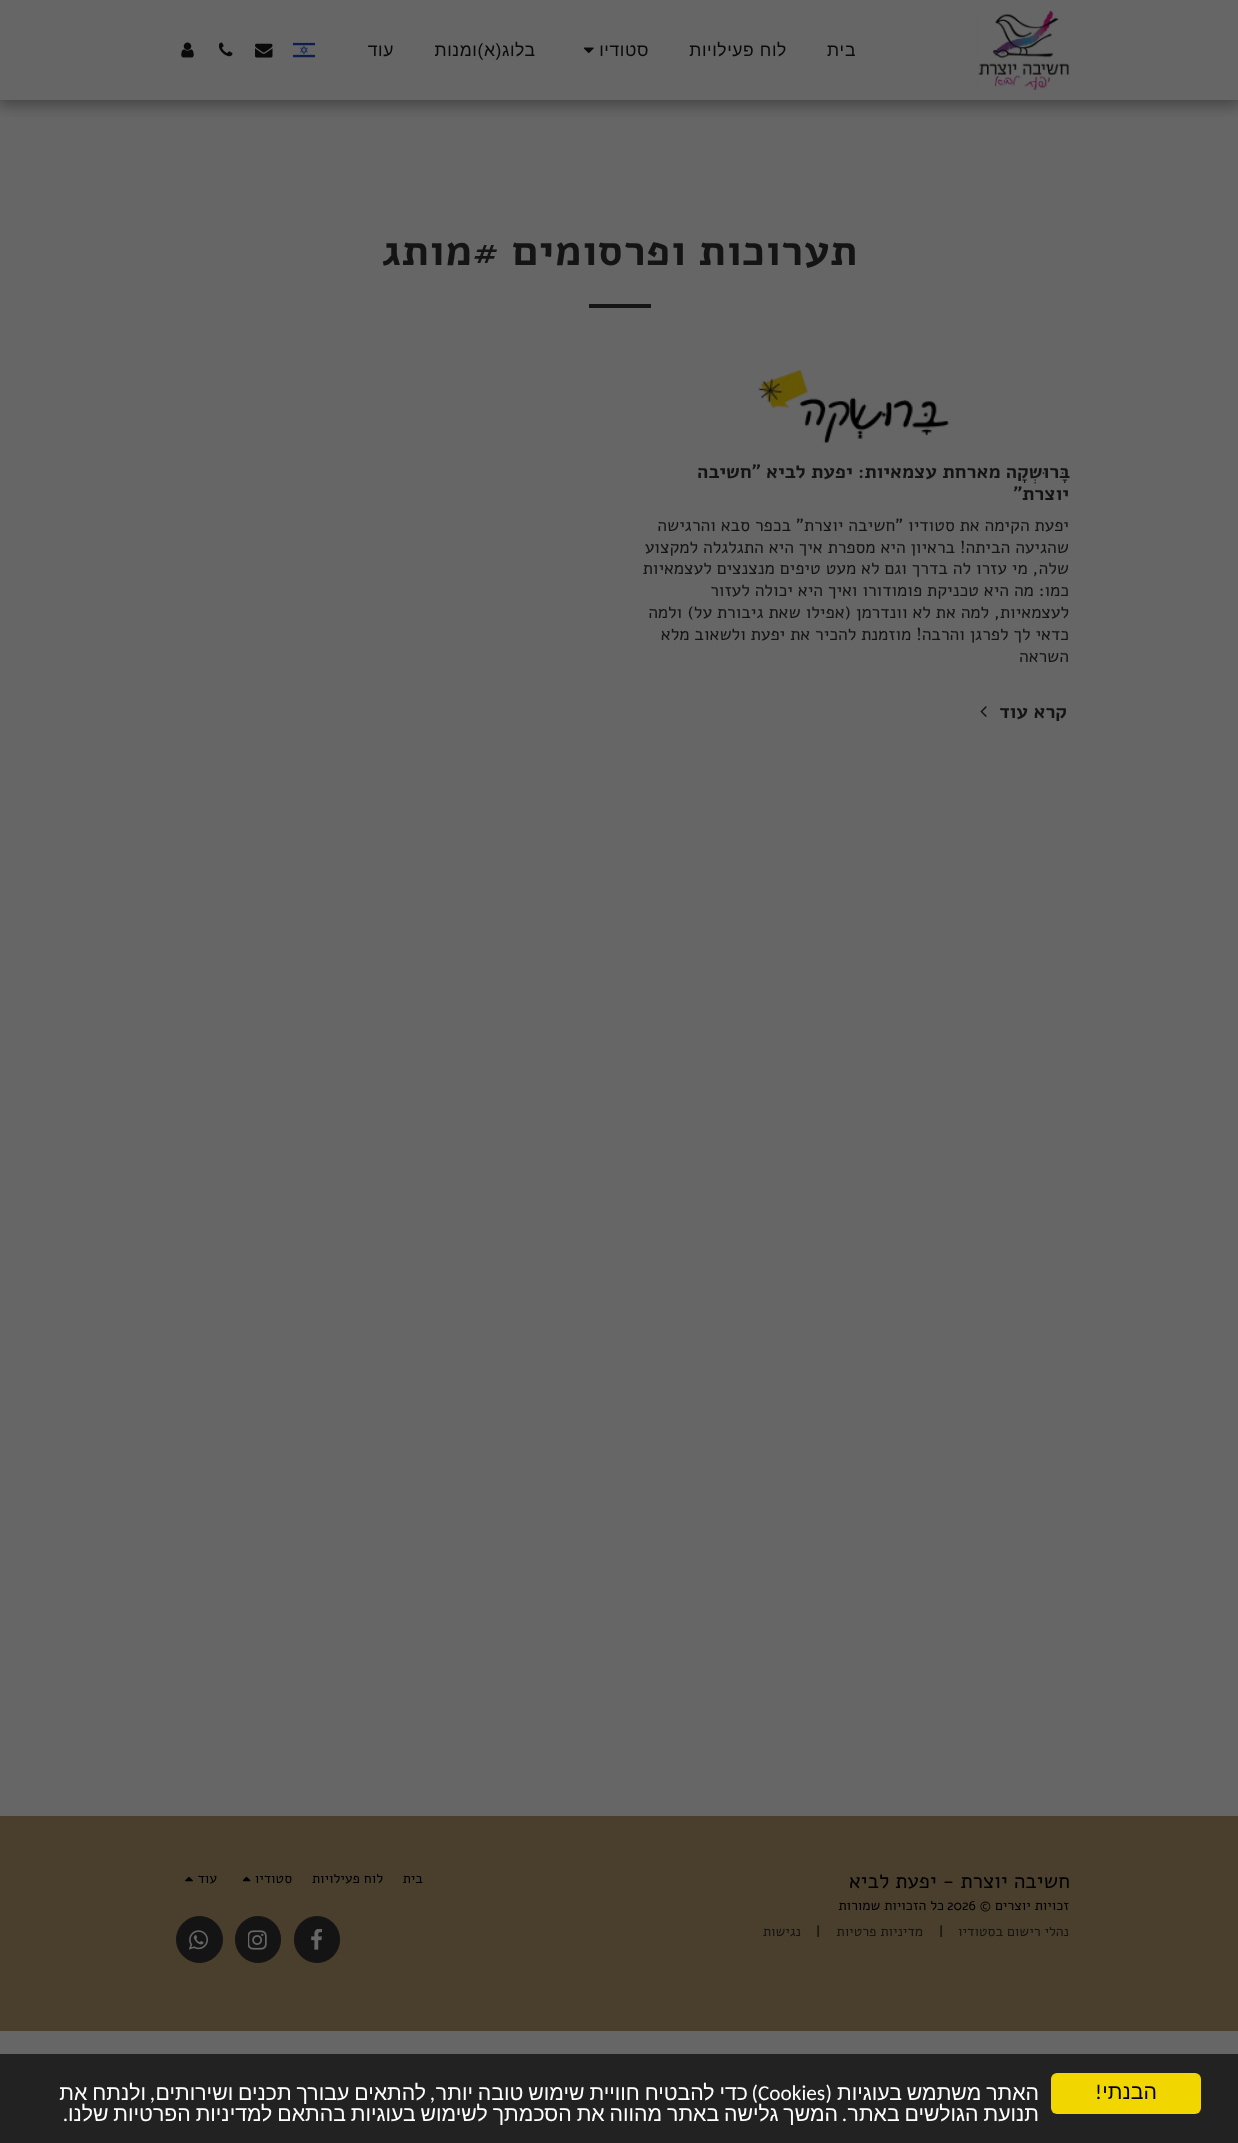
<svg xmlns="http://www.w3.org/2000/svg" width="1238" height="2143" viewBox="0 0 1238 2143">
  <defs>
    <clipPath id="clip1"><rect x="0" y="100" width="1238" height="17"/></clipPath>
    <filter id="blur1" x="-50%" y="-200%" width="200%" height="500%"><feGaussianBlur stdDeviation="7.5"/></filter>
  </defs>
  <rect width="100%" height="100%" fill="#666666"/>
  <g clip-path="url(#clip1)">
    <rect x="-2" y="0" width="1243" height="105" fill="#0a0a0a" fill-opacity="0.35" filter="url(#blur1)"/>
  </g>
  <image x="978" y="10" width="92" height="80" href="img1.png"/>
  <text x="856" y="56" font-family="Arimo" font-size="17.5" letter-spacing="0.6" direction="rtl" fill="#0a0a0a">בית</text>
  <text x="787" y="56" font-family="Arimo" font-size="17.5" letter-spacing="0.6" direction="rtl" fill="#0a0a0a">לוח פעילויות</text>
  <text x="649" y="56" font-family="Arimo" font-size="17.5" letter-spacing="0.6" direction="rtl" fill="#0a0a0a">סטודיו</text>
  <image x="584" y="47" width="10" height="7" href="img2.png"/>
  <text x="536" y="56" font-family="Arimo" font-size="17.5" letter-spacing="0.6" direction="rtl" fill="#0a0a0a">בלוג(א)ומנות</text>
  <text x="394" y="56" font-family="Arimo" font-size="17.5" letter-spacing="0.6" direction="rtl" fill="#0a0a0a">עוד</text>
  <image x="293" y="42" width="22" height="16" href="img3.png"/>
  <image x="255" y="43" width="18" height="15" href="img4.png"/>
  <image x="219" y="42" width="14" height="15" href="img5.png"/>
  <image x="181" y="42" width="13" height="16" href="img6.png"/>
  <text x="858" y="265" font-family="Alef" font-size="42.75" font-weight="bold" letter-spacing="0.6" direction="rtl" fill="#141414">תערוכות ופרסומים #מותג</text>
  <rect x="589" y="304" width="62" height="4" fill="#141414"/>
  <image x="758" y="370" width="191" height="73" href="img7.png"/>
  <text x="1070" y="478" font-family="Alef" font-size="19.25" font-weight="bold" direction="rtl" fill="#141414">בָּרוּשְקָה מארחת עצמאיות: יפעת לביא "חשיבה</text>
  <text x="1069" y="500" font-family="Alef" font-size="19.25" font-weight="bold" direction="rtl" fill="#141414">יוצרת"</text>
  <text x="1069" y="531" font-family="Alef" font-size="17.5" direction="rtl" fill="#141414">יפעת הקימה את סטודיו "חשיבה יוצרת" בכפר סבא והרגישה</text>
  <text x="1069" y="553" font-family="Alef" font-size="17.5" direction="rtl" fill="#141414">שהגיעה הביתה! בראיון היא מספרת איך היא התגלגלה למקצוע</text>
  <text x="1069" y="574" font-family="Alef" font-size="17.5" direction="rtl" fill="#141414">שלה, מי עזרו לה בדרך וגם לא מעט טיפים מנצנצים לעצמאיות</text>
  <text x="1069" y="596" font-family="Alef" font-size="17.5" direction="rtl" fill="#141414">כמו: מה היא טכניקת פומודורו ואיך היא יכולה לעזור</text>
  <text x="1069" y="618" font-family="Alef" font-size="17.5" direction="rtl" fill="#141414">לעצמאיות, למה את לא וונדרמן (אפילו שאת גיבורת על) ולמה</text>
  <text x="1069" y="640" font-family="Alef" font-size="17.5" direction="rtl" fill="#141414">כדאי לך לפרגן והרבה! מוזמנת להכיר את יפעת ולשאוב מלא</text>
  <text x="1069" y="662" font-family="Alef" font-size="17.5" direction="rtl" fill="#141414">השראה</text>
  <text x="1067" y="718" font-family="Alef" font-size="19.25" font-weight="bold" direction="rtl" fill="#141414">קרא עוד</text>
  <image x="980" y="706" width="7" height="11" href="img8.png"/>
  <rect x="0" y="1816" width="1238" height="215" fill="#4a3f2c"/>
  <text x="1070" y="1888" font-family="Alef" font-size="21" direction="rtl" fill="#000000">חשיבה יוצרת - יפעת לביא</text>
  <text x="1069" y="1910" font-family="Alef" font-size="14" direction="rtl" fill="#000000">זכויות יוצרים ©</text>
  <text x="947" y="1910" font-family="Alef" font-size="14" fill="#000000">2026</text>
  <text x="944" y="1910" font-family="Alef" font-size="14" direction="rtl" fill="#000000">כל הזכויות שמורות</text>
  <text x="1069" y="1936" font-family="Alef" font-size="14" direction="rtl" fill="#141414">נהלי רישום בסטודיו</text>
  <text x="939" y="1936" font-family="Alef" font-size="14" fill="#000000">|</text>
  <text x="923" y="1936" font-family="Alef" font-size="14" direction="rtl" fill="#141414">מדיניות פרטיות</text>
  <text x="816" y="1936" font-family="Alef" font-size="14" fill="#000000">|</text>
  <text x="801" y="1936" font-family="Alef" font-size="14" direction="rtl" fill="#141414">נגישות</text>
  <text x="423" y="1883" font-family="Alef" font-size="14" direction="rtl" fill="#000000">בית</text>
  <text x="383" y="1883" font-family="Alef" font-size="14" direction="rtl" fill="#000000">לוח פעילויות</text>
  <text x="292" y="1883" font-family="Alef" font-size="14" direction="rtl" fill="#000000">סטודיו</text>
  <image x="243" y="1876" width="8" height="6" href="img9.png"/>
  <text x="217" y="1883" font-family="Alef" font-size="14" direction="rtl" fill="#000000">עוד</text>
  <image x="185" y="1876" width="8" height="6" href="img10.png"/>
  <rect x="294.5" y="1916.5" width="45" height="46" rx="22.5" fill="#141414" stroke="#141414"/>
  <image x="311" y="1929" width="12" height="21" href="img11.png"/>
  <rect x="235.5" y="1916.5" width="45" height="46" rx="22.5" fill="#141414" stroke="#141414"/>
  <image x="248" y="1930" width="19" height="20" href="img12.png"/>
  <circle cx="199.5" cy="1939.5" r="23" fill="#141414" stroke="#141414"/>
  <image x="189" y="1930" width="19" height="20" href="img13.png"/>
  <rect x="0" y="2054" width="1238" height="89" fill="#222222"/>
  <rect x="1051" y="2073" width="150" height="41" rx="6" fill="#f1d600"/>
  <text x="1157" y="2099" font-family="Liberation Sans" font-size="21.25" direction="rtl" fill="#000000">הבנתי</text>
  <text x="1102" y="2099" font-family="Carlito" font-size="21.25" direction="rtl" fill="#000000">!</text>
  <text x="1039" y="2100" word-spacing="-1" font-family="Liberation Sans" font-size="21.25" direction="rtl" fill="#ffffff">האתר משתמש בעוגיות</text>
  <text x="832" y="2100" font-family="Carlito" font-size="21.25" direction="rtl" fill="#ffffff">(</text>
  <text x="758" y="2100" font-family="Carlito" font-size="21.25" fill="#ffffff">Cookies</text>
  <text x="758" y="2100" font-family="Carlito" font-size="21.25" direction="rtl" fill="#ffffff">)</text>
  <text x="748" y="2100" word-spacing="-1" font-family="Liberation Sans" font-size="21.25" direction="rtl" fill="#ffffff">כדי להבטיח חוויית שימוש טובה יותר</text>
  <text x="435" y="2100" font-family="Carlito" font-size="21.25" direction="rtl" fill="#ffffff">,</text>
  <text x="426" y="2100" word-spacing="-1" font-family="Liberation Sans" font-size="21.25" direction="rtl" fill="#ffffff">להתאים עבורך תכנים ושירותים</text>
  <text x="155" y="2100" font-family="Carlito" font-size="21.25" direction="rtl" fill="#ffffff">,</text>
  <text x="146" y="2100" word-spacing="-1" font-family="Liberation Sans" font-size="21.25" direction="rtl" fill="#ffffff">ולנתח את</text>
  <text x="838" y="2121" word-spacing="-1" font-family="Liberation Sans" font-size="21.25" direction="rtl" fill="#ffffff">המשך גלישה באתר מהווה את הסכמתך לשימוש בעוגיות בהתאם למדיניות הפרטיות שלנו</text>
  <text x="1039" y="2121" word-spacing="-1" font-family="Liberation Sans" font-size="21.25" direction="rtl" fill="#ffffff">תנועת הגולשים באתר</text>
  <text x="68" y="2121" font-family="Carlito" font-size="21.25" direction="rtl" fill="#ffffff">.</text>
  <text x="847" y="2121" font-family="Carlito" font-size="21.25" direction="rtl" fill="#ffffff">.</text>
</svg>
